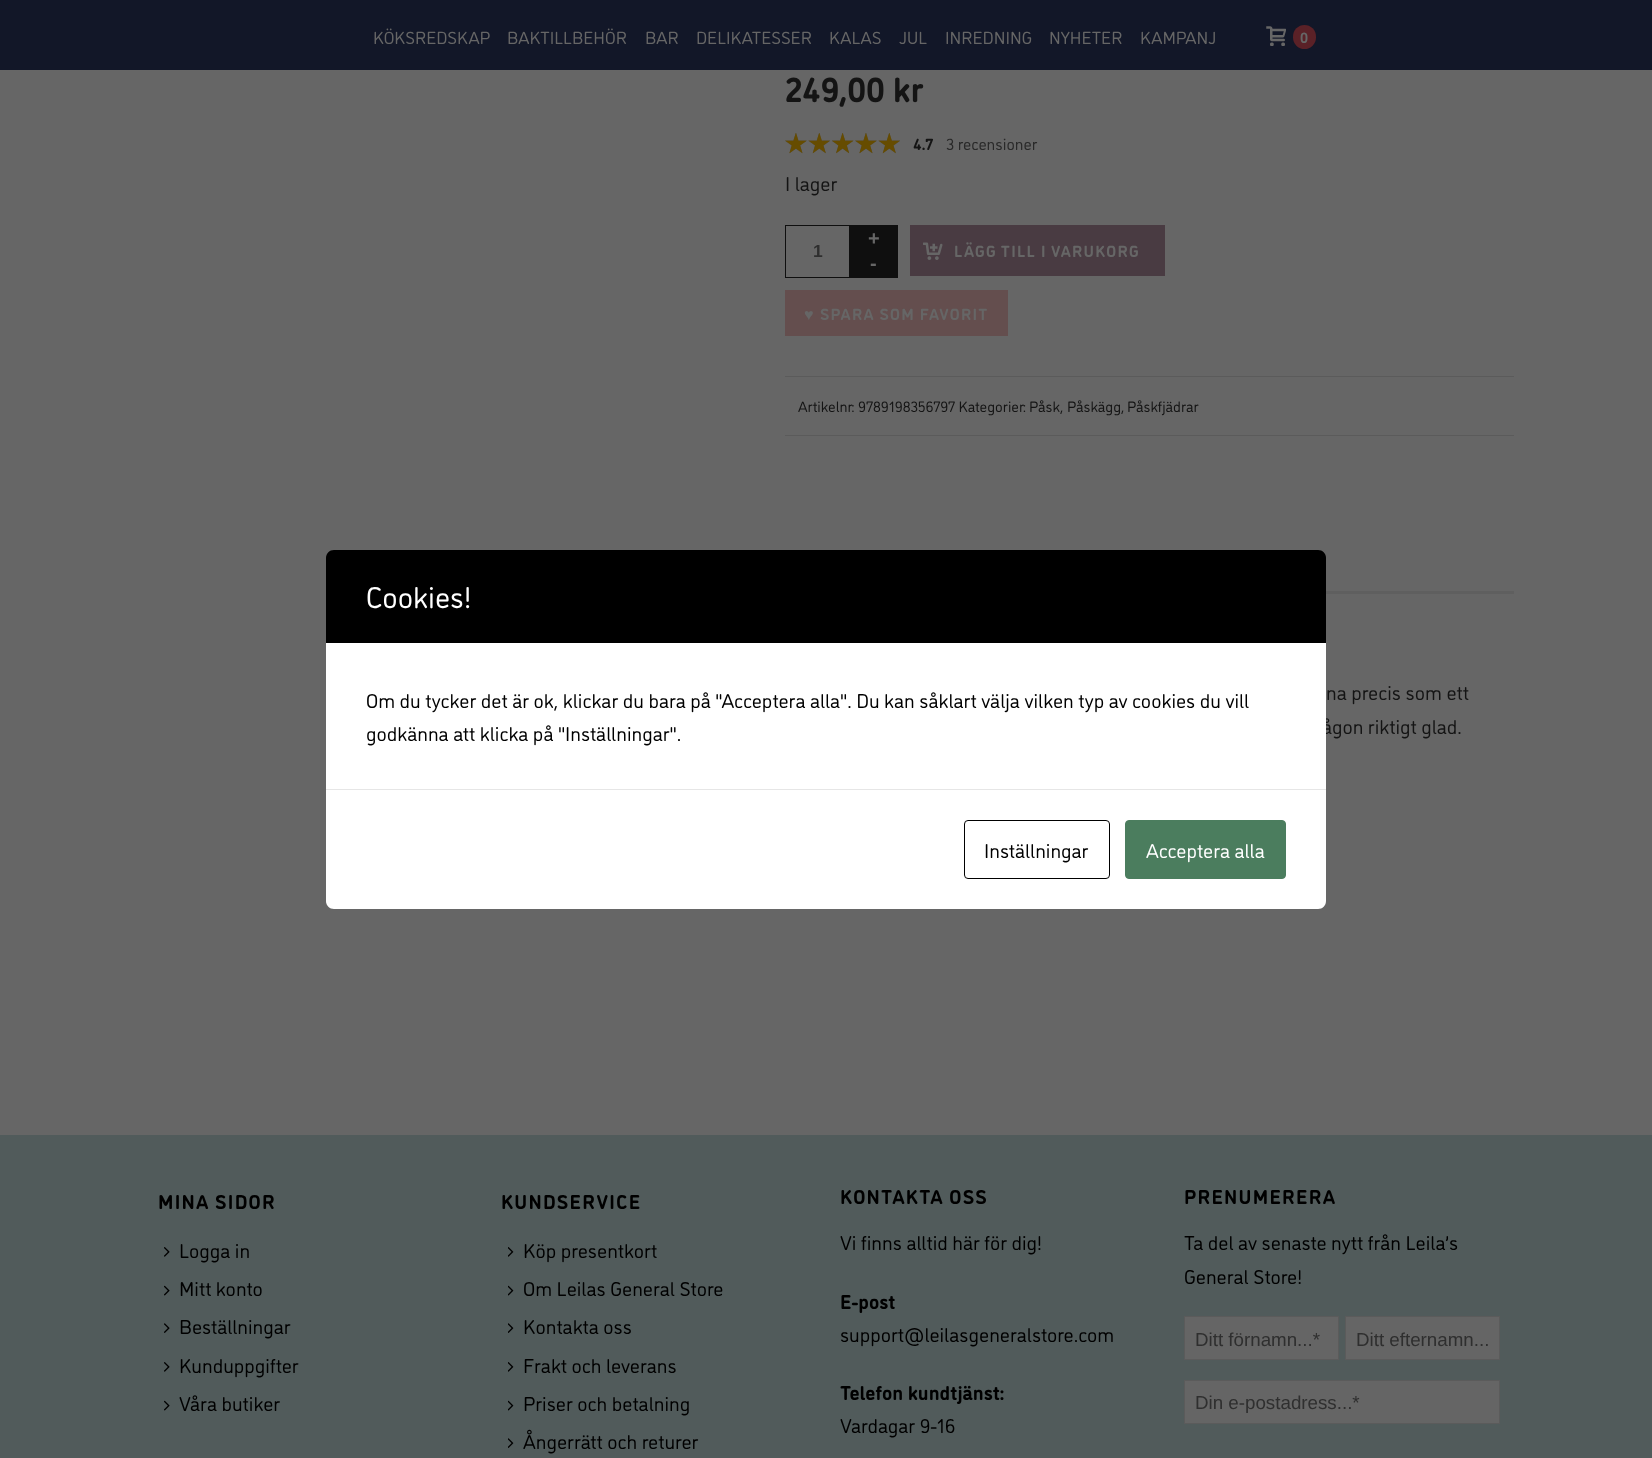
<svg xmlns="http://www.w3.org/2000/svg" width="1652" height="1458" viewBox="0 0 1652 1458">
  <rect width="100%" height="100%" fill="#666666"/>
  <rect x="0" y="0" width="1652" height="70" fill="#121728"/>
  <text x="373" y="44" font-family="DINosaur" font-size="17.5" fill="#666666">KÖKSREDSKAP</text>
  <text x="507" y="44" font-family="DINosaur" font-size="17.5" fill="#666666">BAKTILLBEHÖR</text>
  <text x="645" y="44" font-family="DINosaur" font-size="17.5" fill="#666666">BAR</text>
  <text x="696" y="44" font-family="DINosaur" font-size="17.5" fill="#666666">DELIKATESSER</text>
  <text x="829" y="44" font-family="DINosaur" font-size="17.5" fill="#666666">KALAS</text>
  <text x="899" y="44" font-family="DINosaur" font-size="17.5" fill="#666666">JUL</text>
  <text x="945" y="44" font-family="DINosaur" font-size="17.5" fill="#666666">INREDNING</text>
  <text x="1049" y="44" font-family="DINosaur" font-size="17.5" fill="#666666">NYHETER</text>
  <text x="1140" y="44" font-family="DINosaur" font-size="17.5" fill="#666666">KAMPANJ</text>
  <image x="1266" y="26" width="20" height="20" href="img1.png"/>
  <rect x="1293" y="25" width="23" height="24" rx="11.5" fill="#5a2127"/>
  <text x="1300" y="43" font-family="DINosaur" font-size="15" font-weight="bold" fill="#666666">0</text>
  <text x="785" y="102" font-family="DINosaur" font-size="35" font-weight="bold" fill="#141414">249,00 kr</text>
  <image x="785" y="133" width="115" height="20" href="img2.png"/>
  <image x="785" y="133" width="115" height="21" href="img3.png"/>
  <text x="913" y="150" font-family="DINosaur" font-size="16.25" font-weight="bold" fill="#141414">4.7</text>
  <text x="946" y="150" font-family="DINosaur" font-size="16.25" fill="#292929">3 recensioner</text>
  <text x="785" y="191" font-family="DINosaur" font-size="20" fill="#141414">I lager</text>
  <rect x="850" y="225" width="48" height="53" fill="#0f0f0f"/>
  <text x="868" y="245" font-family="Liberation Sans" font-size="20" font-weight="bold" fill="#666666">+</text>
  <rect x="785.5" y="225.5" width="64" height="52" fill="none" stroke="#0f0f0f"/>
  <text x="813" y="257" font-family="Liberation Sans" font-size="17.5" font-weight="bold" fill="#2f2f2f">1</text>
  <text x="870" y="270" font-family="Liberation Sans" font-size="20" font-weight="bold" fill="#666666">-</text>
  <rect x="910" y="225" width="255" height="51" fill="#493b42"/>
  <image x="923" y="242" width="20" height="18" href="img4.png"/>
  <text x="954" y="257" font-family="DINosaur" font-size="16.25" font-weight="bold" letter-spacing="1.25" fill="#666666">LÄGG TILL I VARUKORG</text>
  <rect x="785" y="290" width="223" height="46" fill="#644e4e"/>
  <text x="804" y="320" font-family="Liberation Sans" font-size="16.25" font-weight="bold" letter-spacing="1.25" fill="#666666">♥</text>
  <text x="820" y="320" font-family="DINosaur" font-size="16.25" font-weight="bold" letter-spacing="1.25" fill="#666666">SPARA SOM FAVORIT</text>
  <rect x="785" y="376" width="729" height="1" fill="#5b5b5b"/>
  <rect x="785" y="435" width="729" height="1" fill="#5b5b5b"/>
  <text x="798" y="412" font-family="DINosaur" font-size="15" fill="#141414">Artikelnr: 9789198356797 Kategorier:</text>
  <text x="1029" y="412" font-family="DINosaur" font-size="15" fill="#141414">Påsk</text>
  <text x="1060" y="412" font-family="DINosaur" font-size="15" fill="#141414">,</text>
  <text x="1067" y="412" font-family="DINosaur" font-size="15" fill="#141414">Påskägg</text>
  <text x="1121" y="412" font-family="DINosaur" font-size="15" fill="#141414">,</text>
  <text x="1127" y="412" font-family="DINosaur" font-size="15" fill="#141414">Påskfjädrar</text>
  <rect x="1326" y="591" width="188" height="3" fill="#5f5f5f"/>
  <text x="1326" y="700" font-family="DINosaur" font-size="20" fill="#141414">na precis som ett</text>
  <text x="1322" y="734" font-family="DINosaur" font-size="20" fill="#141414">ågon riktigt glad.</text>
  <rect x="0" y="1135" width="1652" height="323" fill="#515b5b"/>
  <text x="158" y="1209" font-family="DINosaur" font-size="20" font-weight="bold" letter-spacing="1.25" fill="#000000">MINA SIDOR</text>
  <image x="164" y="1247" width="6" height="10" href="img5.png"/>
  <text x="179" y="1258" font-family="DINosaur" font-size="20" fill="#000000">Logga in</text>
  <image x="164" y="1285" width="6" height="11" href="img6.png"/>
  <text x="179" y="1296" font-family="DINosaur" font-size="20" fill="#000000">Mitt konto</text>
  <image x="164" y="1323" width="6" height="10" href="img7.png"/>
  <text x="179" y="1334" font-family="DINosaur" font-size="20" fill="#000000">Beställningar</text>
  <image x="164" y="1362" width="6" height="10" href="img5.png"/>
  <text x="179" y="1373" font-family="DINosaur" font-size="20" fill="#000000">Kunduppgifter</text>
  <image x="164" y="1400" width="6" height="11" href="img6.png"/>
  <text x="179" y="1411" font-family="DINosaur" font-size="20" fill="#000000">Våra butiker</text>
  <text x="501" y="1209" font-family="DINosaur" font-size="20" font-weight="bold" letter-spacing="1.25" fill="#000000">KUNDSERVICE</text>
  <image x="508" y="1247" width="6" height="10" href="img8.png"/>
  <text x="523" y="1258" font-family="DINosaur" font-size="20" fill="#000000">Köp presentkort</text>
  <image x="508" y="1285" width="6" height="11" href="img9.png"/>
  <text x="523" y="1296" font-family="DINosaur" font-size="20" fill="#000000">Om Leilas General Store</text>
  <image x="508" y="1323" width="6" height="10" href="img10.png"/>
  <text x="523" y="1334" font-family="DINosaur" font-size="20" fill="#000000">Kontakta oss</text>
  <image x="508" y="1362" width="6" height="10" href="img8.png"/>
  <text x="523" y="1373" font-family="DINosaur" font-size="20" fill="#000000">Frakt och leverans</text>
  <image x="508" y="1400" width="6" height="11" href="img9.png"/>
  <text x="523" y="1411" font-family="DINosaur" font-size="20" fill="#000000">Priser och betalning</text>
  <image x="508" y="1438" width="6" height="10" href="img10.png"/>
  <text x="523" y="1449" font-family="DINosaur" font-size="20" fill="#000000">Ångerrätt och returer</text>
  <text x="840" y="1204" font-family="DINosaur" font-size="20" font-weight="bold" letter-spacing="1.25" fill="#000000">KONTAKTA OSS</text>
  <text x="840" y="1250" font-family="DINosaur" font-size="20" fill="#000000">Vi finns alltid här för dig!</text>
  <text x="840" y="1309" font-family="DINosaur" font-size="20" font-weight="bold" fill="#000000">E-post</text>
  <text x="840" y="1342" font-family="DINosaur" font-size="20" fill="#000000">support@leilasgeneralstore.com</text>
  <text x="840" y="1400" font-family="DINosaur" font-size="20" font-weight="bold" fill="#000000">Telefon kundtjänst:</text>
  <text x="840" y="1433" font-family="DINosaur" font-size="20" fill="#000000">Vardagar 9-16</text>
  <text x="1184" y="1204" font-family="DINosaur" font-size="20" font-weight="bold" letter-spacing="1.25" fill="#000000">PRENUMERERA</text>
  <text x="1184" y="1250" font-family="DINosaur" font-size="20" fill="#000000">Ta del av senaste nytt från Leila’s</text>
  <text x="1184" y="1284" font-family="DINosaur" font-size="20" fill="#000000">General Store!</text>
  <rect x="1184.5" y="1316.5" width="154" height="43" fill="#656565" stroke="#5b5b5b"/>
  <text x="1195" y="1346" font-family="Liberation Sans" font-size="18.75" fill="#2f2f2f">Ditt förnamn...*</text>
  <rect x="1345.5" y="1316.5" width="154" height="43" fill="#656565" stroke="#5b5b5b"/>
  <text x="1356" y="1346" font-family="Liberation Sans" font-size="18.75" fill="#2f2f2f">Ditt efternamn...</text>
  <rect x="1184.5" y="1380.5" width="315" height="43" fill="#656565" stroke="#5b5b5b"/>
  <text x="1195" y="1409" font-family="Liberation Sans" font-size="18.75" fill="#2f2f2f">Din e-postadress...*</text>
  <path d="M334 550H1318C1322.5 550 1326 553.5 1326 558V643H326V558C326 553.5 329.5 550 334 550Z" fill="#000000"/>
  <text x="366" y="608" font-family="DINosaur" font-size="30" fill="#ffffff">Cookies!</text>
  <rect x="326" y="643" width="1000" height="146" fill="#ffffff"/>
  <text x="366" y="708" font-family="DINosaur" font-size="20" fill="#000000">Om du tycker det är ok, klickar du bara på "Acceptera alla". Du kan såklart välja vilken typ av cookies du vill</text>
  <text x="366" y="741" font-family="DINosaur" font-size="20" fill="#000000">godkänna att klicka på "Inställningar".</text>
  <path d="M326 789H1326V901C1326 905.5 1322.5 909 1318 909H334C329.5 909 326 905.5 326 901Z" fill="#ffffff"/>
  <rect x="326" y="789" width="1000" height="1" fill="#e6e6e6"/>
  <rect x="964.5" y="820.5" width="145" height="58" rx="3.5" fill="none" stroke="#000000"/>
  <text x="984" y="858" font-family="DINosaur" font-size="20" fill="#000000">Inställningar</text>
  <rect x="1125.5" y="820.5" width="160" height="58" rx="3.5" fill="#4b7d5e" stroke="#4b7d5e"/>
  <text x="1146" y="858" font-family="DINosaur" font-size="20" fill="#ffffff">Acceptera alla</text>
</svg>
